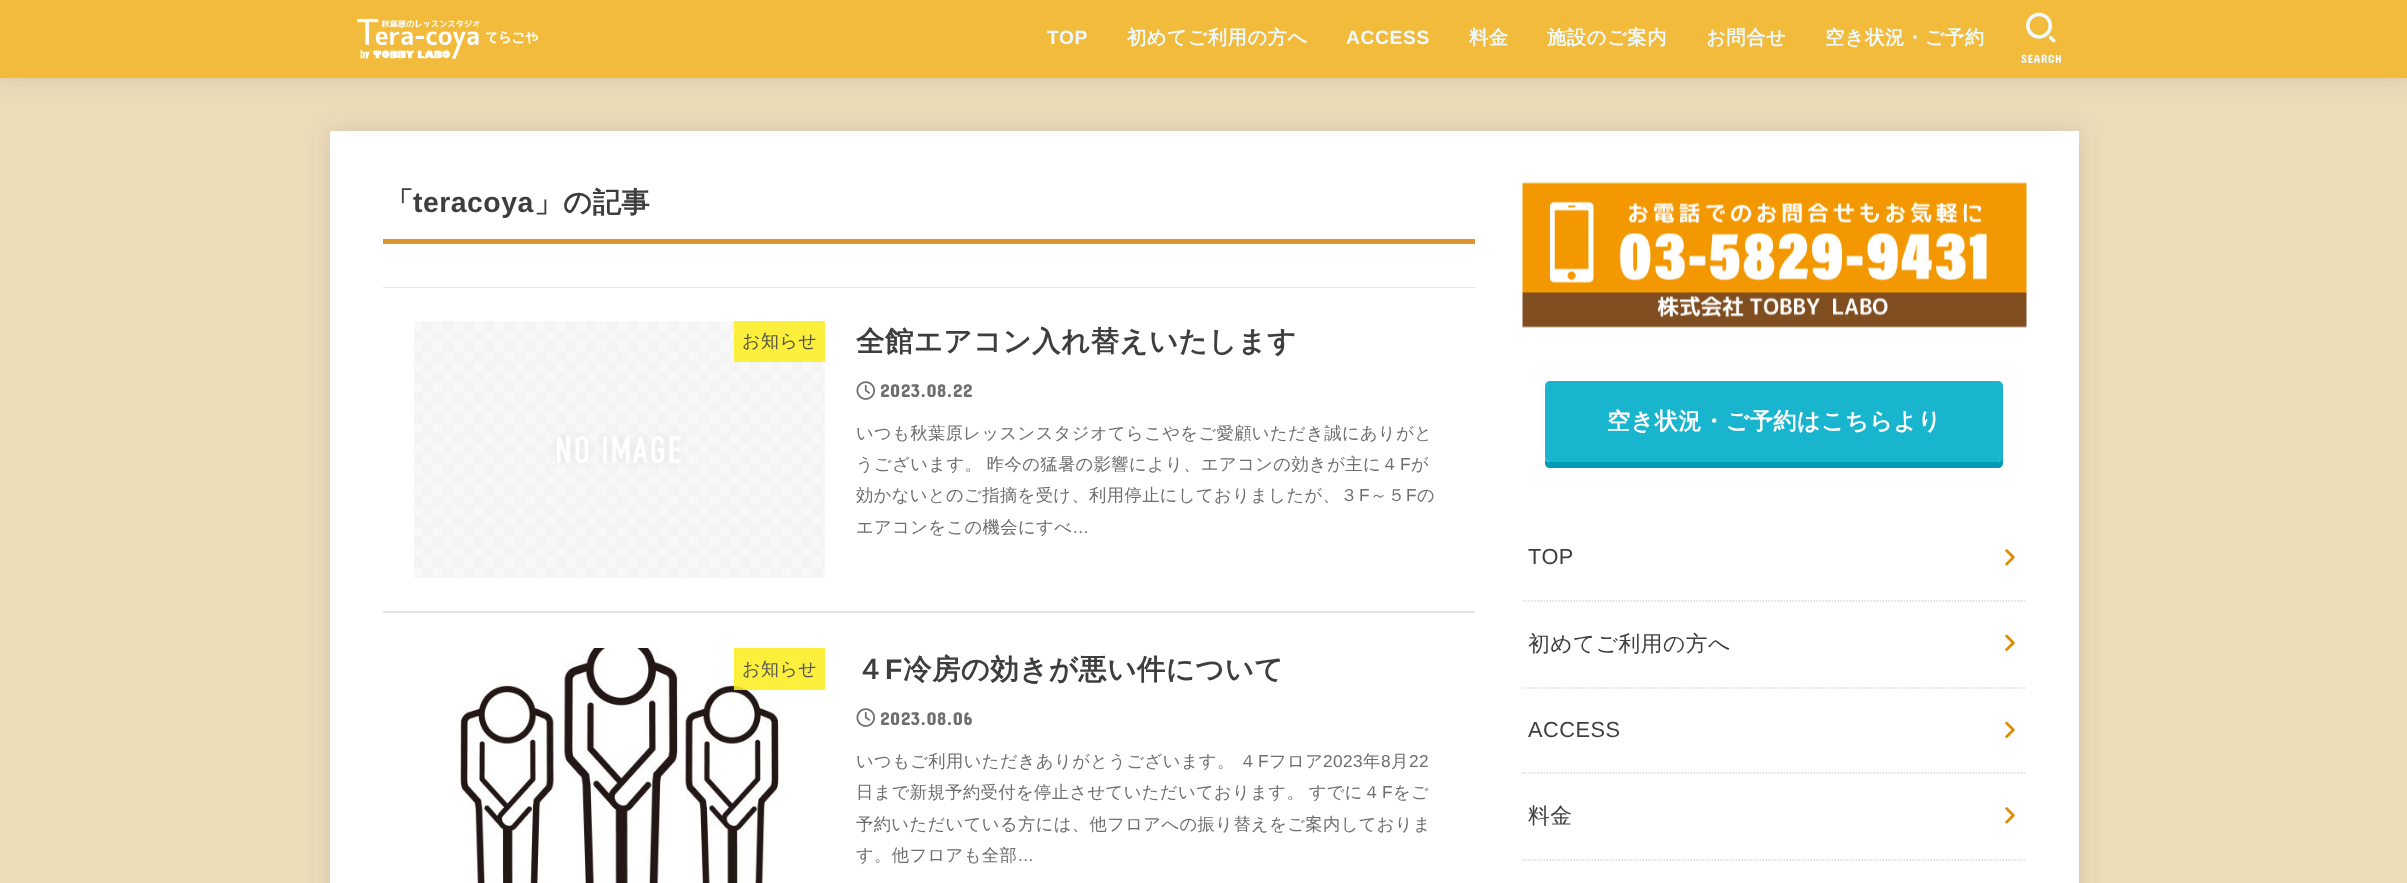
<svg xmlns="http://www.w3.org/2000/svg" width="2407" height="883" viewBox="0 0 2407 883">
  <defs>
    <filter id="blur1" x="-50%" y="-200%" width="200%" height="500%"><feGaussianBlur stdDeviation="11"/></filter>
  </defs>
  <rect width="100%" height="100%" fill="#eddcb8"/>
  <rect x="0" y="0" width="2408" height="78" fill="#666666" fill-opacity="0.2" filter="url(#blur1)"/>
  <rect x="0" y="0" width="2407" height="78" fill="#f2bb3c"/>
  <image x="357" y="18" width="182" height="41" href="img1.png"/>
  <text x="1047" y="44" font-family="Liberation Sans" font-size="19.25" font-weight="bold" letter-spacing="0.6" fill="#edf9fc">TOP</text>
  <text x="1127" y="44" font-family="WenQuanYi Zen Hei" font-size="19.25" font-weight="bold" letter-spacing="0.6" fill="#edf9fc">初めてご利用の方へ</text>
  <text x="1346" y="44" font-family="Liberation Sans" font-size="19.25" font-weight="bold" letter-spacing="0.6" fill="#edf9fc">ACCESS</text>
  <text x="1469" y="44" font-family="WenQuanYi Zen Hei" font-size="19.25" font-weight="bold" letter-spacing="0.6" fill="#edf9fc">料金</text>
  <text x="1547" y="44" font-family="WenQuanYi Zen Hei" font-size="19.25" font-weight="bold" letter-spacing="0.6" fill="#edf9fc">施設のご案内</text>
  <text x="1706" y="44" font-family="WenQuanYi Zen Hei" font-size="19.25" font-weight="bold" letter-spacing="0.6" fill="#edf9fc">お問合せ</text>
  <text x="1825" y="44" font-family="WenQuanYi Zen Hei" font-size="19.25" font-weight="bold" letter-spacing="0.6" fill="#edf9fc">空き状況・ご予約</text>
  <image x="2026" y="12" width="30" height="31" href="img2.png"/>
  <text x="2021" y="63" font-family="Concert One" font-size="12" letter-spacing="0.5" fill="#edf9fc">SEARCH</text>
  <rect x="330" y="131" width="1749" height="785" fill="#666666" fill-opacity="0.2" filter="url(#blur1)"/>
  <rect x="330" y="131" width="1749" height="752" fill="#ffffff"/>
  <rect x="383" y="239" width="1092" height="5" fill="#dd962c"/>
  <text x="385" y="212" font-family="WenQuanYi Zen Hei" font-size="28.4" font-weight="bold" letter-spacing="0.5" fill="#3e3e3e">「</text>
  <text x="413" y="212" font-family="Liberation Sans" font-size="28.4" font-weight="bold" letter-spacing="0.5" fill="#3e3e3e">teracoya</text>
  <text x="534" y="212" font-family="WenQuanYi Zen Hei" font-size="28.4" font-weight="bold" letter-spacing="0.5" fill="#3e3e3e">」の記事</text>
  <rect x="383" y="287" width="1092" height="1" fill="#e6e6e6"/>
  <rect x="383" y="611" width="1092" height="2" fill="#e6e6e6"/>
  <image x="414" y="321" width="411" height="257" href="img3.png"/>
  <rect x="734" y="321" width="91" height="41" fill="#fcee21" fill-opacity="0.88"/>
  <text x="742" y="347" font-family="WenQuanYi Zen Hei" font-size="18" font-weight="500" letter-spacing="0.5" fill="#55533e">お知らせ</text>
  <text x="856" y="351" font-family="WenQuanYi Zen Hei" font-size="28.4" font-weight="bold" letter-spacing="0.5" fill="#3e3e3e">全館エアコン入れ替えいたします</text>
  <image x="856" y="381" width="19" height="19" href="img4.png"/>
  <text x="880" y="397" font-family="Concert One" font-size="18.5" letter-spacing="0.5" fill="#6e6e6e">2023.08.22</text>
  <text x="856" y="439" font-family="WenQuanYi Zen Hei" font-size="17.3" font-weight="500" letter-spacing="0.4" fill="#6e6e6e">いつも秋葉原レッスンスタジオてらこやをご愛顧いただき誠にありがと</text>
  <text x="856" y="470" word-spacing="-1" font-family="WenQuanYi Zen Hei" font-size="17.3" font-weight="500" letter-spacing="0.4" fill="#6e6e6e">うございます。 昨今の猛暑の影響により、エアコンの効きが主に４</text>
  <text x="1400" y="470" font-family="Liberation Sans" font-size="17.3" letter-spacing="0.4" fill="#6e6e6e">F</text>
  <text x="1411" y="470" font-family="WenQuanYi Zen Hei" font-size="17.3" font-weight="500" letter-spacing="0.4" fill="#6e6e6e">が</text>
  <text x="856" y="501" font-family="WenQuanYi Zen Hei" font-size="17.3" font-weight="500" letter-spacing="0.4" fill="#6e6e6e">効かないとのご指摘を受け、利用停止にしておりましたが、３</text>
  <text x="1359" y="501" font-family="Liberation Sans" font-size="17.3" letter-spacing="0.4" fill="#6e6e6e">F</text>
  <text x="1370" y="501" font-family="WenQuanYi Zen Hei" font-size="17.3" font-weight="500" letter-spacing="0.4" fill="#6e6e6e">～５</text>
  <text x="1406" y="501" font-family="Liberation Sans" font-size="17.3" letter-spacing="0.4" fill="#6e6e6e">F</text>
  <text x="1417" y="501" font-family="WenQuanYi Zen Hei" font-size="17.3" font-weight="500" letter-spacing="0.4" fill="#6e6e6e">の</text>
  <text x="856" y="533" font-family="WenQuanYi Zen Hei" font-size="17.3" font-weight="500" letter-spacing="0.4" fill="#6e6e6e">エアコンをこの機会にすべ</text>
  <text x="1073" y="533" font-family="Liberation Sans" font-size="17.3" letter-spacing="0.4" fill="#6e6e6e">...</text>
  <image x="460" y="648" width="321" height="235" href="img5.png"/>
  <rect x="734" y="648" width="91" height="42" fill="#fcee21" fill-opacity="0.88"/>
  <text x="742" y="675" font-family="WenQuanYi Zen Hei" font-size="18" font-weight="500" letter-spacing="0.5" fill="#555555">お知らせ</text>
  <text x="856" y="679" font-family="WenQuanYi Zen Hei" font-size="28.4" font-weight="bold" letter-spacing="0.5" fill="#3e3e3e">４</text>
  <text x="885" y="679" font-family="Liberation Sans" font-size="28.4" font-weight="bold" letter-spacing="0.5" fill="#3e3e3e">F</text>
  <text x="903" y="679" font-family="WenQuanYi Zen Hei" font-size="28.4" font-weight="bold" letter-spacing="0.5" fill="#3e3e3e">冷房の効きが悪い件について</text>
  <image x="856" y="708" width="19" height="19" href="img4.png"/>
  <text x="880" y="725" font-family="Concert One" font-size="18.5" letter-spacing="0.5" fill="#6e6e6e">2023.08.06</text>
  <text x="856" y="767" word-spacing="-1" font-family="WenQuanYi Zen Hei" font-size="17.3" font-weight="500" letter-spacing="0.4" fill="#6e6e6e">いつもご利用いただきありがとうございます。 ４</text>
  <text x="1258" y="767" font-family="Liberation Sans" font-size="17.3" letter-spacing="0.4" fill="#6e6e6e">F</text>
  <text x="1269" y="767" font-family="WenQuanYi Zen Hei" font-size="17.3" font-weight="500" letter-spacing="0.4" fill="#6e6e6e">フロア</text>
  <text x="1323" y="767" font-family="Liberation Sans" font-size="17.3" letter-spacing="0.4" fill="#6e6e6e">2023</text>
  <text x="1363" y="767" font-family="WenQuanYi Zen Hei" font-size="17.3" font-weight="500" letter-spacing="0.4" fill="#6e6e6e">年</text>
  <text x="1381" y="767" font-family="Liberation Sans" font-size="17.3" letter-spacing="0.4" fill="#6e6e6e">8</text>
  <text x="1391" y="767" font-family="WenQuanYi Zen Hei" font-size="17.3" font-weight="500" letter-spacing="0.4" fill="#6e6e6e">月</text>
  <text x="1409" y="767" font-family="Liberation Sans" font-size="17.3" letter-spacing="0.4" fill="#6e6e6e">22</text>
  <text x="856" y="798" word-spacing="-1" font-family="WenQuanYi Zen Hei" font-size="17.3" font-weight="500" letter-spacing="0.4" fill="#6e6e6e">日まで新規予約受付を停止させていただいております。 すでに４</text>
  <text x="1382" y="798" font-family="Liberation Sans" font-size="17.3" letter-spacing="0.4" fill="#6e6e6e">F</text>
  <text x="1393" y="798" font-family="WenQuanYi Zen Hei" font-size="17.3" font-weight="500" letter-spacing="0.4" fill="#6e6e6e">をご</text>
  <text x="856" y="830" font-family="WenQuanYi Zen Hei" font-size="17.3" font-weight="500" letter-spacing="0.4" fill="#6e6e6e">予約いただいている方には、他フロアへの振り替えをご案内しておりま</text>
  <text x="856" y="861" font-family="WenQuanYi Zen Hei" font-size="17.3" font-weight="500" letter-spacing="0.4" fill="#6e6e6e">す。他フロアも全部</text>
  <text x="1018" y="861" font-family="Liberation Sans" font-size="17.3" letter-spacing="0.4" fill="#6e6e6e">...</text>
  <image x="1522" y="182" width="505" height="146" href="img6.png"/>
  <path d="M1545 458V463C1545 466 1547 468 1550 468H1998C2001 468 2003 466 2003 463V392L2002 390V458C2002 460 2000 462 1998 462H1550C1547 462 1545 460 1545 458Z" fill="#009bb5"/>
  <rect x="1545" y="381" width="458" height="81" rx="5" fill="#19b4ce"/>
  <text x="1607" y="429" font-family="WenQuanYi Zen Hei" font-size="23.1" font-weight="bold" letter-spacing="0.5" fill="#ffffff">空き状況・ご予約はこちらより</text>
  <path d="M1522.5 601H2026.5" fill="none" stroke="#d8d8d8" stroke-width="1.5" stroke-dasharray="1.5 1.5"/>
  <text x="1528" y="564" font-family="Liberation Sans" font-size="21.75" letter-spacing="0.5" fill="#3e3e3e">TOP</text>
  <image x="2005" y="549" width="10" height="17" href="img7.png"/>
  <path d="M1522.5 688H2026.5" fill="none" stroke="#d8d8d8" stroke-width="1.5" stroke-dasharray="1.5 1.5"/>
  <text x="1528" y="651" font-family="WenQuanYi Zen Hei" font-size="21.75" font-weight="500" letter-spacing="0.5" fill="#3e3e3e">初めてご利用の方へ</text>
  <image x="2005" y="634" width="10" height="17" href="img8.png"/>
  <path d="M1522.5 773H2026.5" fill="none" stroke="#d8d8d8" stroke-width="1.5" stroke-dasharray="1.5 1.5"/>
  <text x="1528" y="737" font-family="Liberation Sans" font-size="21.75" letter-spacing="0.5" fill="#3e3e3e">ACCESS</text>
  <image x="2005" y="721" width="10" height="17" href="img8.png"/>
  <path d="M1522.5 860H2026.5" fill="none" stroke="#d8d8d8" stroke-width="1.5" stroke-dasharray="1.5 1.5"/>
  <text x="1528" y="823" font-family="WenQuanYi Zen Hei" font-size="21.75" font-weight="500" letter-spacing="0.5" fill="#3e3e3e">料金</text>
  <image x="2005" y="807" width="10" height="17" href="img7.png"/>
</svg>
